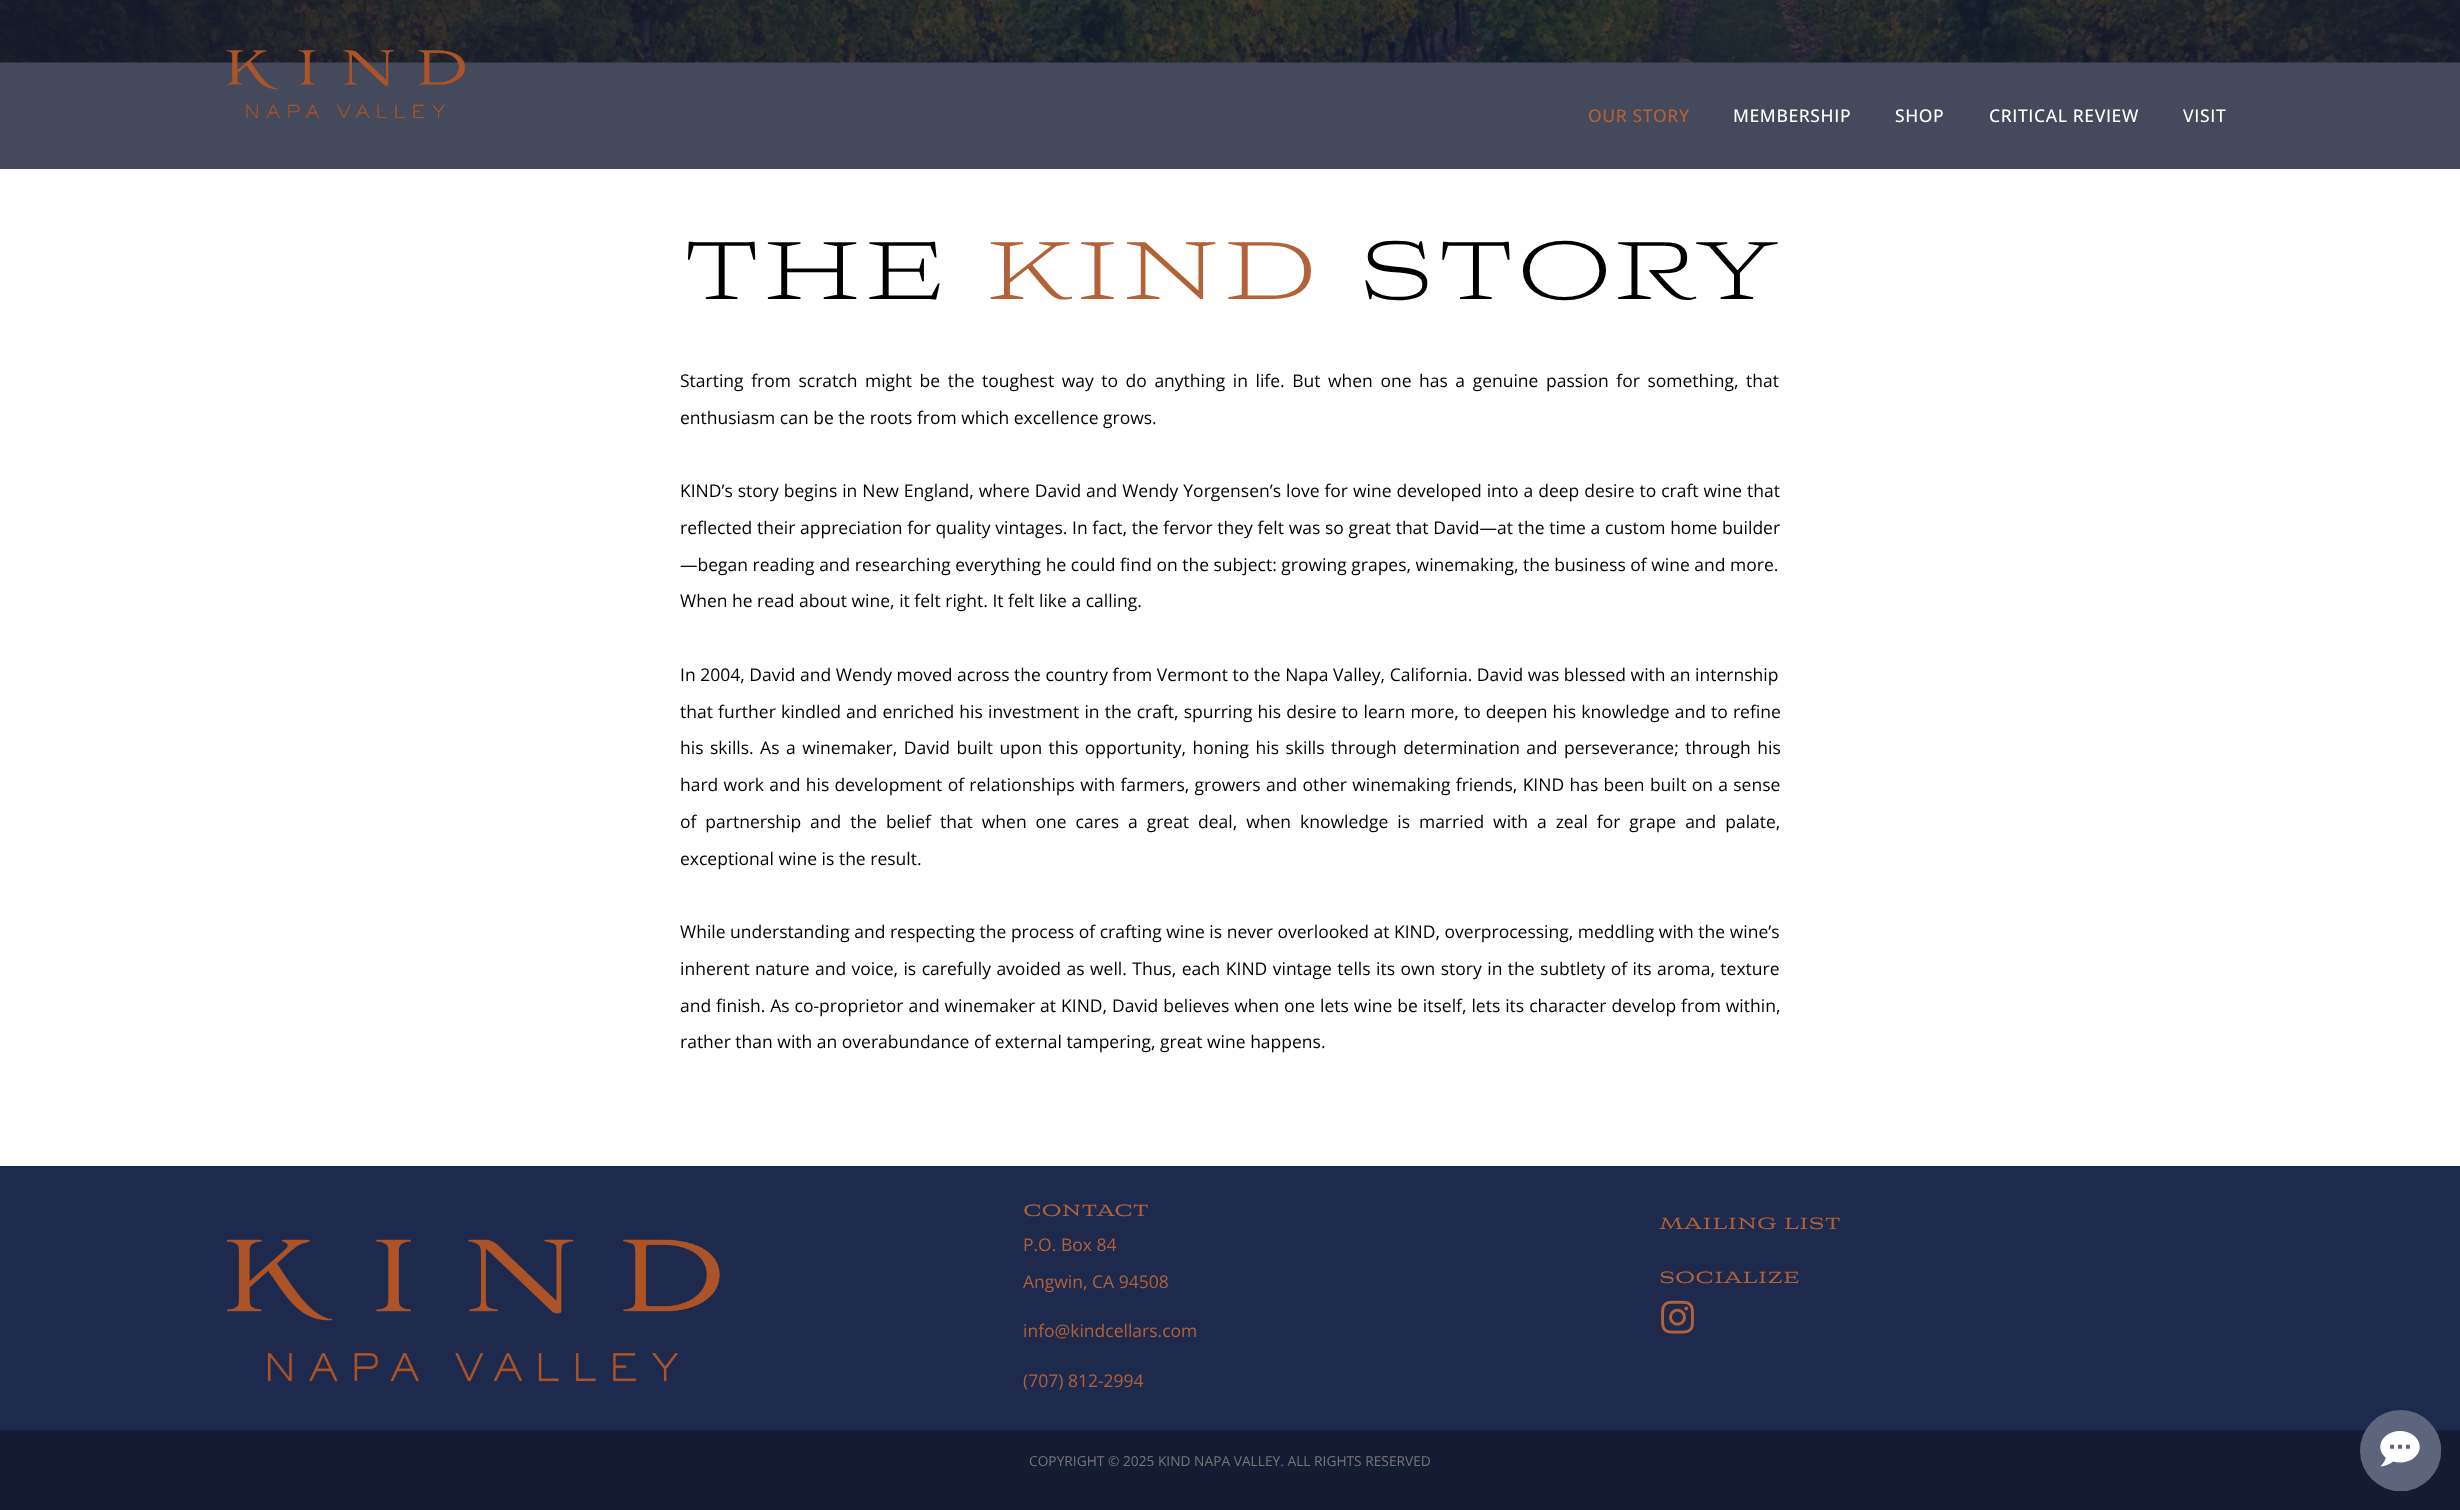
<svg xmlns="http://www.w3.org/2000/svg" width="2460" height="1510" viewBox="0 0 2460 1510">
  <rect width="100%" height="100%" fill="#ffffff"/>
  <image x="0" y="0" width="2460" height="63" href="img2.png"/>
  <rect x="0" y="0" width="2460" height="169" fill="#151c32" fill-opacity="0.8"/>
  <image x="226" y="50" width="239" height="69" href="img1.png"/>
  <text x="1588" y="122" font-family="Open Sans" font-size="17.5" font-weight="500" letter-spacing="0.6" fill="#b36237">OUR STORY</text>
  <text x="1733" y="122" font-family="Open Sans" font-size="17.5" font-weight="500" letter-spacing="0.6" fill="#ffffff">MEMBERSHIP</text>
  <text x="1895" y="122" font-family="Open Sans" font-size="17.5" font-weight="500" letter-spacing="0.6" fill="#ffffff">SHOP</text>
  <text x="1989" y="122" font-family="Open Sans" font-size="17.5" font-weight="500" letter-spacing="0.6" fill="#ffffff">CRITICAL REVIEW</text>
  <text x="2183" y="122" font-family="Open Sans" font-size="17.5" font-weight="500" letter-spacing="0.6" fill="#ffffff">VISIT</text>
  <text x="682" y="299" font-family="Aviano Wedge" font-size="81.25" fill="#000000">THE</text>
  <text x="984" y="299" font-family="Aviano Wedge" font-size="81.25" fill="#b36237">KIND</text>
  <text x="1357" y="299" font-family="Aviano Wedge" font-size="81.25" fill="#000000">STORY</text>
  <text x="680" y="387" word-spacing="3" font-family="Open Sans" font-size="17.5" fill="#000000">Starting from scratch might be the toughest way to do anything in life. But when one has a genuine passion for something, that</text>
  <text x="680" y="424" font-family="Open Sans" font-size="17.5" fill="#000000">enthusiasm can be the roots from which excellence grows.</text>
  <text x="680" y="497" word-spacing="0.4" font-family="Open Sans" font-size="17.5" fill="#000000">KIND’s story begins in New England, where David and Wendy Yorgensen’s love for wine developed into a deep desire to craft wine that</text>
  <text x="680" y="534" word-spacing="0.15" font-family="Open Sans" font-size="17.5" fill="#000000">reflected their appreciation for quality vintages. In fact, the fervor they felt was so great that David—at the time a custom home builder</text>
  <text x="680" y="571" font-family="Open Sans" font-size="17.5" fill="#000000">—began reading and researching everything he could find on the subject: growing grapes, winemaking, the business of wine and more.</text>
  <text x="680" y="607" font-family="Open Sans" font-size="17.5" fill="#000000">When he read about wine, it felt right. It felt like a calling.</text>
  <text x="680" y="681" font-family="Open Sans" font-size="17.5" fill="#000000">In 2004, David and Wendy moved across the country from Vermont to the Napa Valley, California. David was blessed with an internship</text>
  <text x="680" y="718" word-spacing="0.6" font-family="Open Sans" font-size="17.5" fill="#000000">that further kindled and enriched his investment in the craft, spurring his desire to learn more, to deepen his knowledge and to refine</text>
  <text x="680" y="754" word-spacing="1.9" font-family="Open Sans" font-size="17.5" fill="#000000">his skills. As a winemaker, David built upon this opportunity, honing his skills through determination and perseverance; through his</text>
  <text x="680" y="791" word-spacing="0.75" font-family="Open Sans" font-size="17.5" fill="#000000">hard work and his development of relationships with farmers, growers and other winemaking friends, KIND has been built on a sense</text>
  <text x="680" y="828" word-spacing="4.4" font-family="Open Sans" font-size="17.5" fill="#000000">of partnership and the belief that when one cares a great deal, when knowledge is married with a zeal for grape and palate,</text>
  <text x="680" y="865" font-family="Open Sans" font-size="17.5" fill="#000000">exceptional wine is the result.</text>
  <text x="680" y="938" font-family="Open Sans" font-size="17.5" fill="#000000">While understanding and respecting the process of crafting wine is never overlooked at KIND, overprocessing, meddling with the wine’s</text>
  <text x="680" y="975" word-spacing="0.9" font-family="Open Sans" font-size="17.5" fill="#000000">inherent nature and voice, is carefully avoided as well. Thus, each KIND vintage tells its own story in the subtlety of its aroma, texture</text>
  <text x="680" y="1012" word-spacing="0.4" font-family="Open Sans" font-size="17.5" fill="#000000">and finish. As co-proprietor and winemaker at KIND, David believes when one lets wine be itself, lets its character develop from within,</text>
  <text x="680" y="1048" font-family="Open Sans" font-size="17.5" fill="#000000">rather than with an overabundance of external tampering, great wine happens.</text>
  <rect x="0" y="1166" width="2460" height="264" fill="#1d294d"/>
  <image x="226" y="1239" width="494" height="143" href="img3.png"/>
  <text x="1023" y="1216" font-family="Aviano Wedge" font-size="16.25" font-weight="500" fill="#b36237">CONTACT</text>
  <text x="1023" y="1251" font-family="Open Sans" font-size="17.5" fill="#b36237">P.O. Box 84</text>
  <text x="1023" y="1288" font-family="Open Sans" font-size="17.5" fill="#b36237">Angwin, CA 94508</text>
  <text x="1023" y="1337" font-family="Open Sans" font-size="17.5" fill="#b36237">info@kindcellars.com</text>
  <text x="1023" y="1387" font-family="Open Sans" font-size="17.5" fill="#b36237">(707) 812-2994</text>
  <text x="1659" y="1229" font-family="Aviano Wedge" font-size="16.25" font-weight="500" fill="#b36237">MAILING LIST</text>
  <text x="1659" y="1283" font-family="Aviano Wedge" font-size="16.25" font-weight="500" fill="#b36237">SOCIALIZE</text>
  <image x="1661" y="1300" width="33" height="34" href="img4.png"/>
  <rect x="0" y="1430" width="2460" height="80" fill="#141c33"/>
  <text x="1029" y="1466" font-family="Open Sans" font-size="13.75" fill="#787777">COPYRIGHT © 2025 KIND NAPA VALLEY. ALL RIGHTS RESERVED</text>
  <image x="2360" y="1410" width="82" height="82" href="img5.png"/>
</svg>
